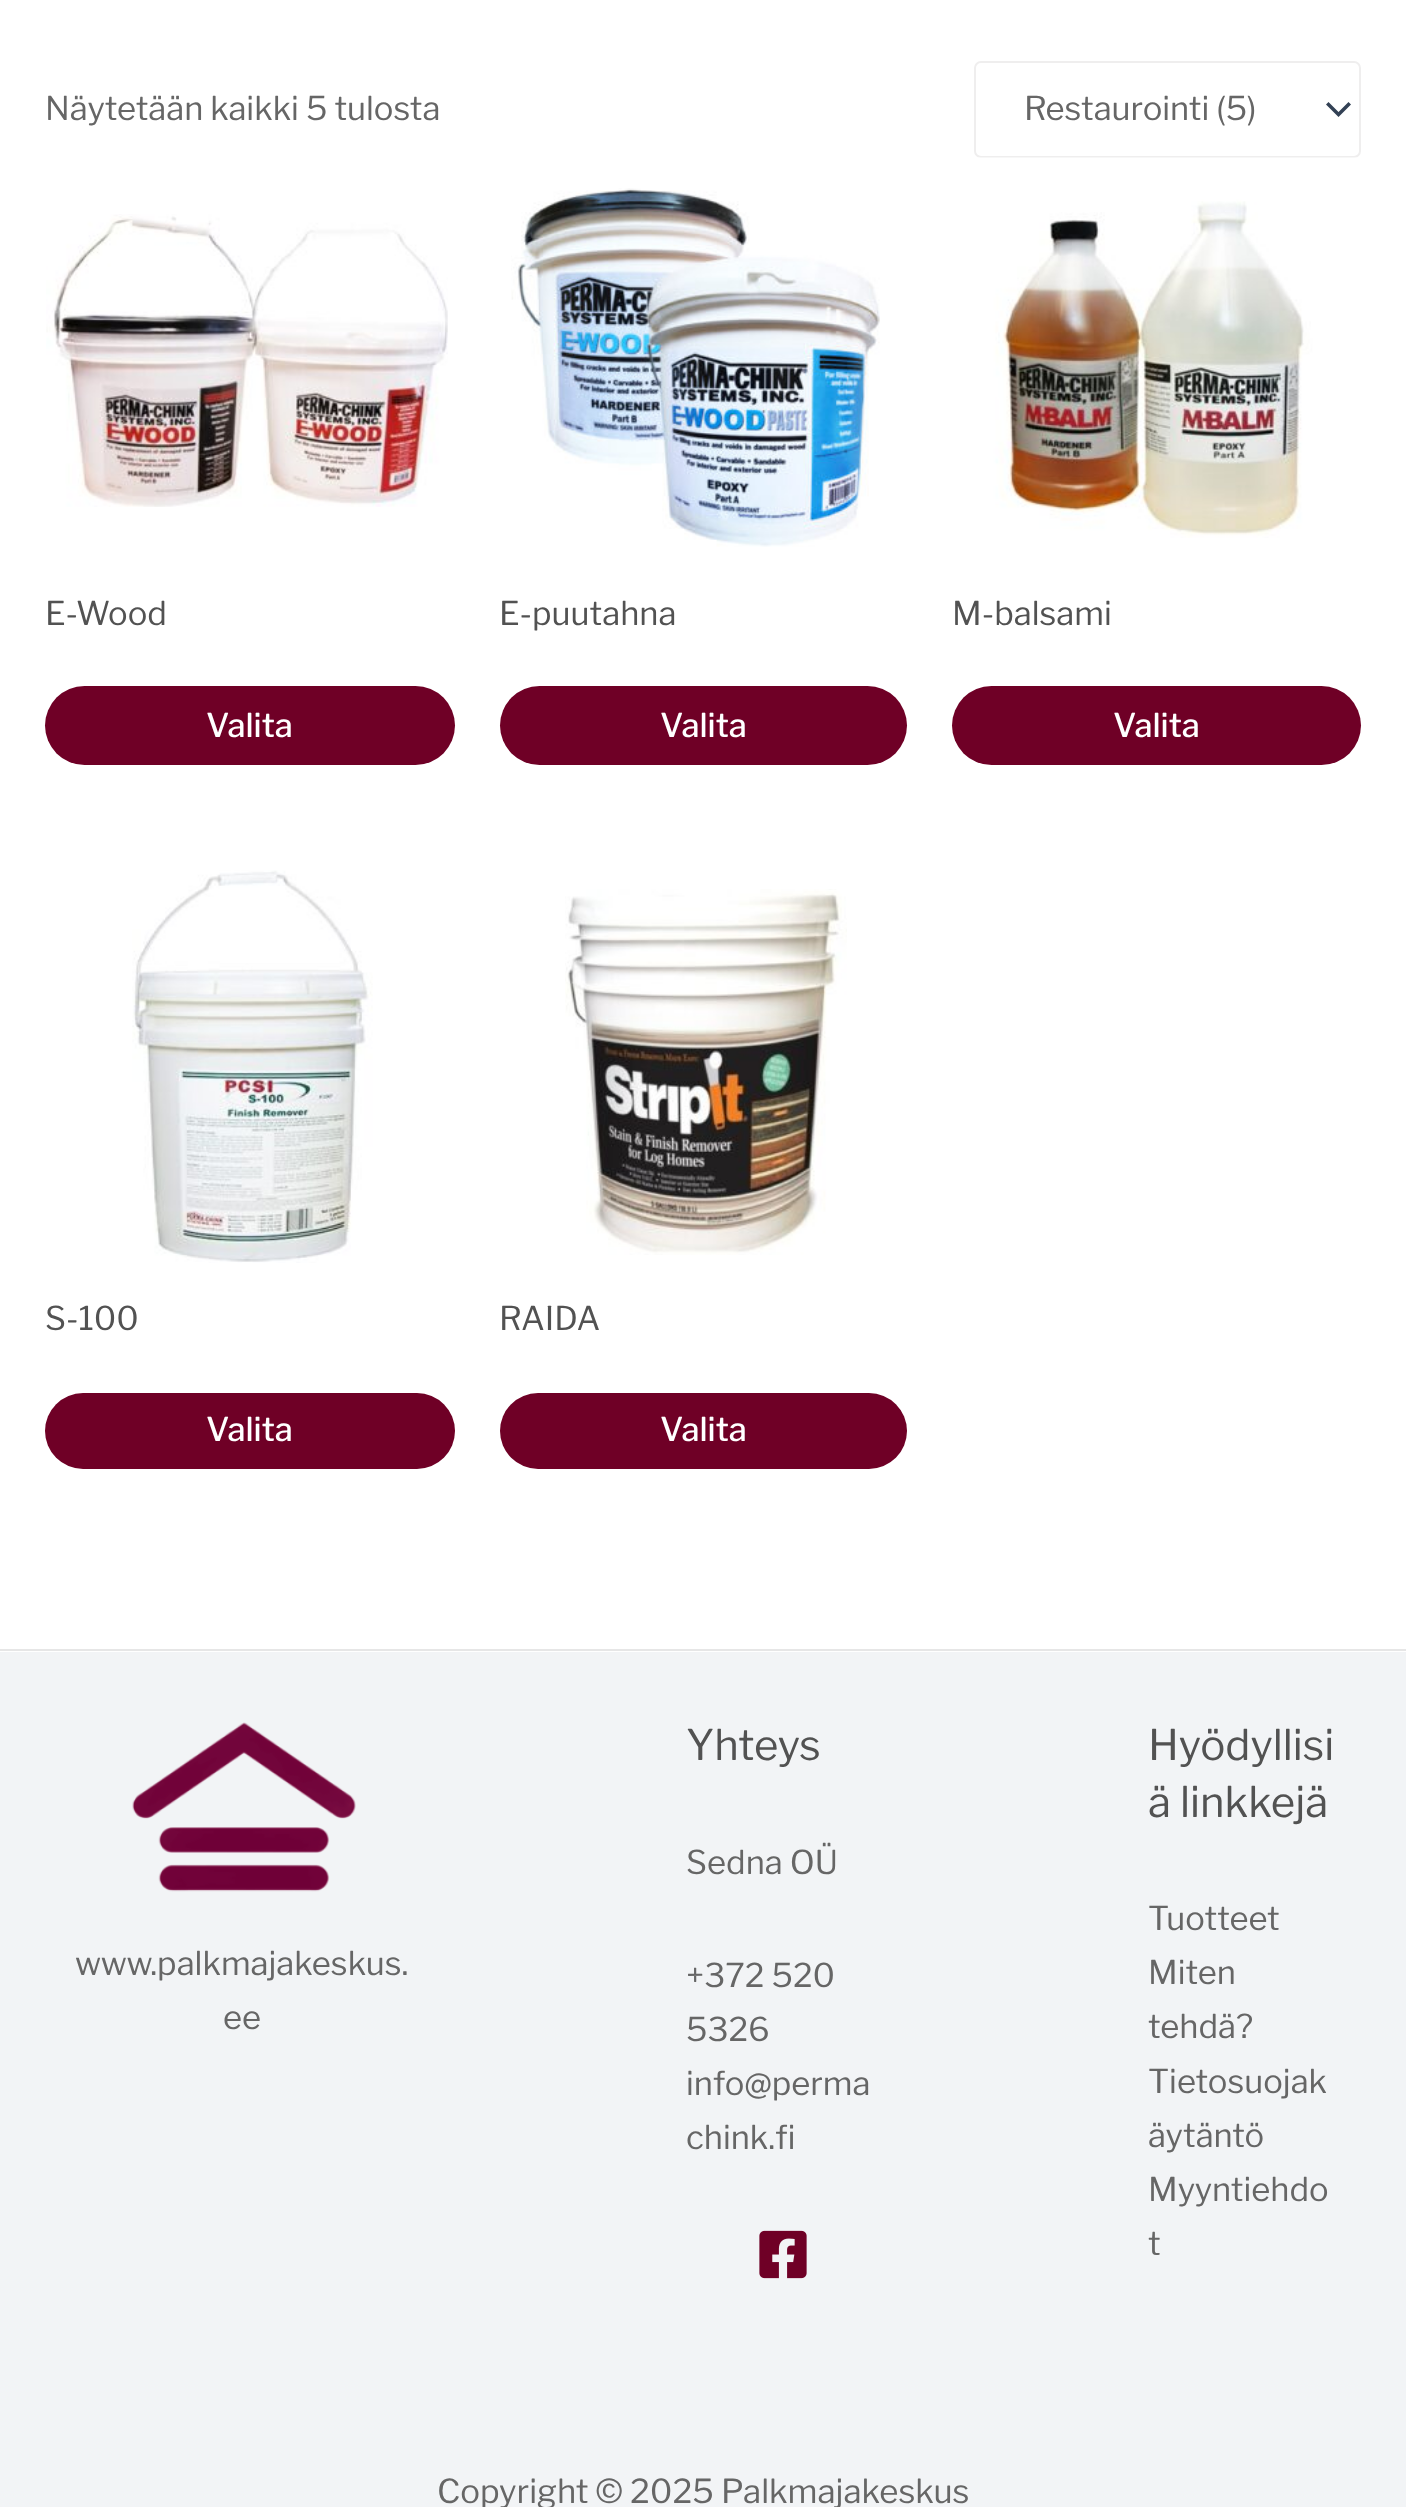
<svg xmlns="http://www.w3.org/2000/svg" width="1406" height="2507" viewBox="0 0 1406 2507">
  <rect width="100%" height="100%" fill="#ffffff"/>
  <text x="45" y="120" font-family="Libre Franklin" font-size="32.75" fill="#666666">Näytetään kaikki 5 tulosta</text>
  <path d="M1326 104.5L1338.5 117L1351 104.5L1348.5 102L1338.5 112L1328.5 102Z" fill="#334155"/>
  <rect x="975" y="62" width="385" height="95" rx="6" fill="none" stroke="#efeeee" stroke-width="2"/>
  <text x="1024" y="120" font-family="Libre Franklin" font-size="32.75" fill="#666666">Restaurointi (5)</text>
  <image x="46" y="214" width="402" height="293" href="img1.png"/>
  <text x="45" y="625" font-family="Libre Franklin" font-size="32.75" fill="#525252">E-Wood</text>
  <rect x="45" y="686" width="410" height="79" rx="39.5" fill="#6f0026"/>
  <text x="206" y="737" font-family="Libre Franklin" font-size="32.75" font-weight="500" fill="#ffffff">Valita</text>
  <image x="511" y="188" width="369" height="359" href="img2.png"/>
  <text x="499" y="625" font-family="Libre Franklin" font-size="32.75" fill="#525252">E-puutahna</text>
  <rect x="500" y="686" width="407" height="79" rx="39.5" fill="#6f0026"/>
  <text x="660" y="737" font-family="Libre Franklin" font-size="32.75" font-weight="500" fill="#ffffff">Valita</text>
  <image x="978" y="157" width="379" height="381" href="img3.png"/>
  <text x="952" y="625" font-family="Libre Franklin" font-size="32.75" fill="#525252">M-balsami</text>
  <rect x="952" y="686" width="409" height="79" rx="39.5" fill="#6f0026"/>
  <text x="1113" y="737" font-family="Libre Franklin" font-size="32.75" font-weight="500" fill="#ffffff">Valita</text>
  <image x="132" y="870" width="241" height="393" href="img4.png"/>
  <text x="45" y="1330" font-family="Libre Franklin" font-size="32.75" fill="#525252">S-100</text>
  <rect x="45" y="1393" width="410" height="76" rx="38" fill="#6f0026"/>
  <text x="206" y="1441" font-family="Libre Franklin" font-size="32.75" font-weight="500" fill="#ffffff">Valita</text>
  <image x="565" y="889" width="282" height="366" href="img5.png"/>
  <text x="499" y="1330" font-family="Libre Franklin" font-size="32.75" fill="#525252">RAIDA</text>
  <rect x="500" y="1393" width="407" height="76" rx="38" fill="#6f0026"/>
  <text x="660" y="1441" font-family="Libre Franklin" font-size="32.75" font-weight="500" fill="#ffffff">Valita</text>
  <rect x="0" y="1652" width="1406" height="855" fill="#f2f4f6"/>
  <rect x="0" y="1649" width="1406" height="2" fill="#e6e6e6"/>
  <image x="132" y="1722" width="224" height="170" href="img6.png"/>
  <text x="75" y="1975" font-family="Libre Franklin" font-size="32.75" fill="#666666">www.palkmajakeskus.</text>
  <text x="223" y="2029" font-family="Libre Franklin" font-size="32.75" fill="#666666">ee</text>
  <text x="686" y="1760" font-family="Libre Franklin" font-size="42" fill="#525252">Yhteys</text>
  <text x="686" y="1874" font-family="Libre Franklin" font-size="32.75" fill="#666666">Sedna OÜ</text>
  <text x="686" y="1987" font-family="Libre Franklin" font-size="32.75" fill="#666666">+372 520</text>
  <text x="686" y="2041" font-family="Libre Franklin" font-size="32.75" fill="#666666">5326</text>
  <text x="686" y="2095" font-family="Libre Franklin" font-size="32.75" fill="#666666">info@perma</text>
  <text x="686" y="2149" font-family="Libre Franklin" font-size="32.75" fill="#666666">chink.fi</text>
  <image x="759" y="2230" width="48" height="49" href="img7.png"/>
  <text x="1148" y="1760" font-family="Libre Franklin" font-size="42" fill="#525252">Hyödyllisi</text>
  <text x="1148" y="1817" font-family="Libre Franklin" font-size="42" fill="#525252">ä linkkejä</text>
  <text x="1148" y="1930" font-family="Libre Franklin" font-size="32.75" fill="#666666">Tuotteet</text>
  <text x="1148" y="1984" font-family="Libre Franklin" font-size="32.75" fill="#666666">Miten</text>
  <text x="1148" y="2038" font-family="Libre Franklin" font-size="32.75" fill="#666666">tehdä?</text>
  <text x="1148" y="2093" font-family="Libre Franklin" font-size="32.75" fill="#666666">Tietosuojak</text>
  <text x="1148" y="2147" font-family="Libre Franklin" font-size="32.75" fill="#666666">äytäntö</text>
  <text x="1148" y="2201" font-family="Libre Franklin" font-size="32.75" fill="#666666">Myyntiehdo</text>
  <text x="1148" y="2255" font-family="Libre Franklin" font-size="32.75" fill="#666666">t</text>
  <text x="437" y="2503" font-family="Libre Franklin" font-size="33" fill="#666666">Copyright © 2025 Palkmajakeskus</text>
</svg>
